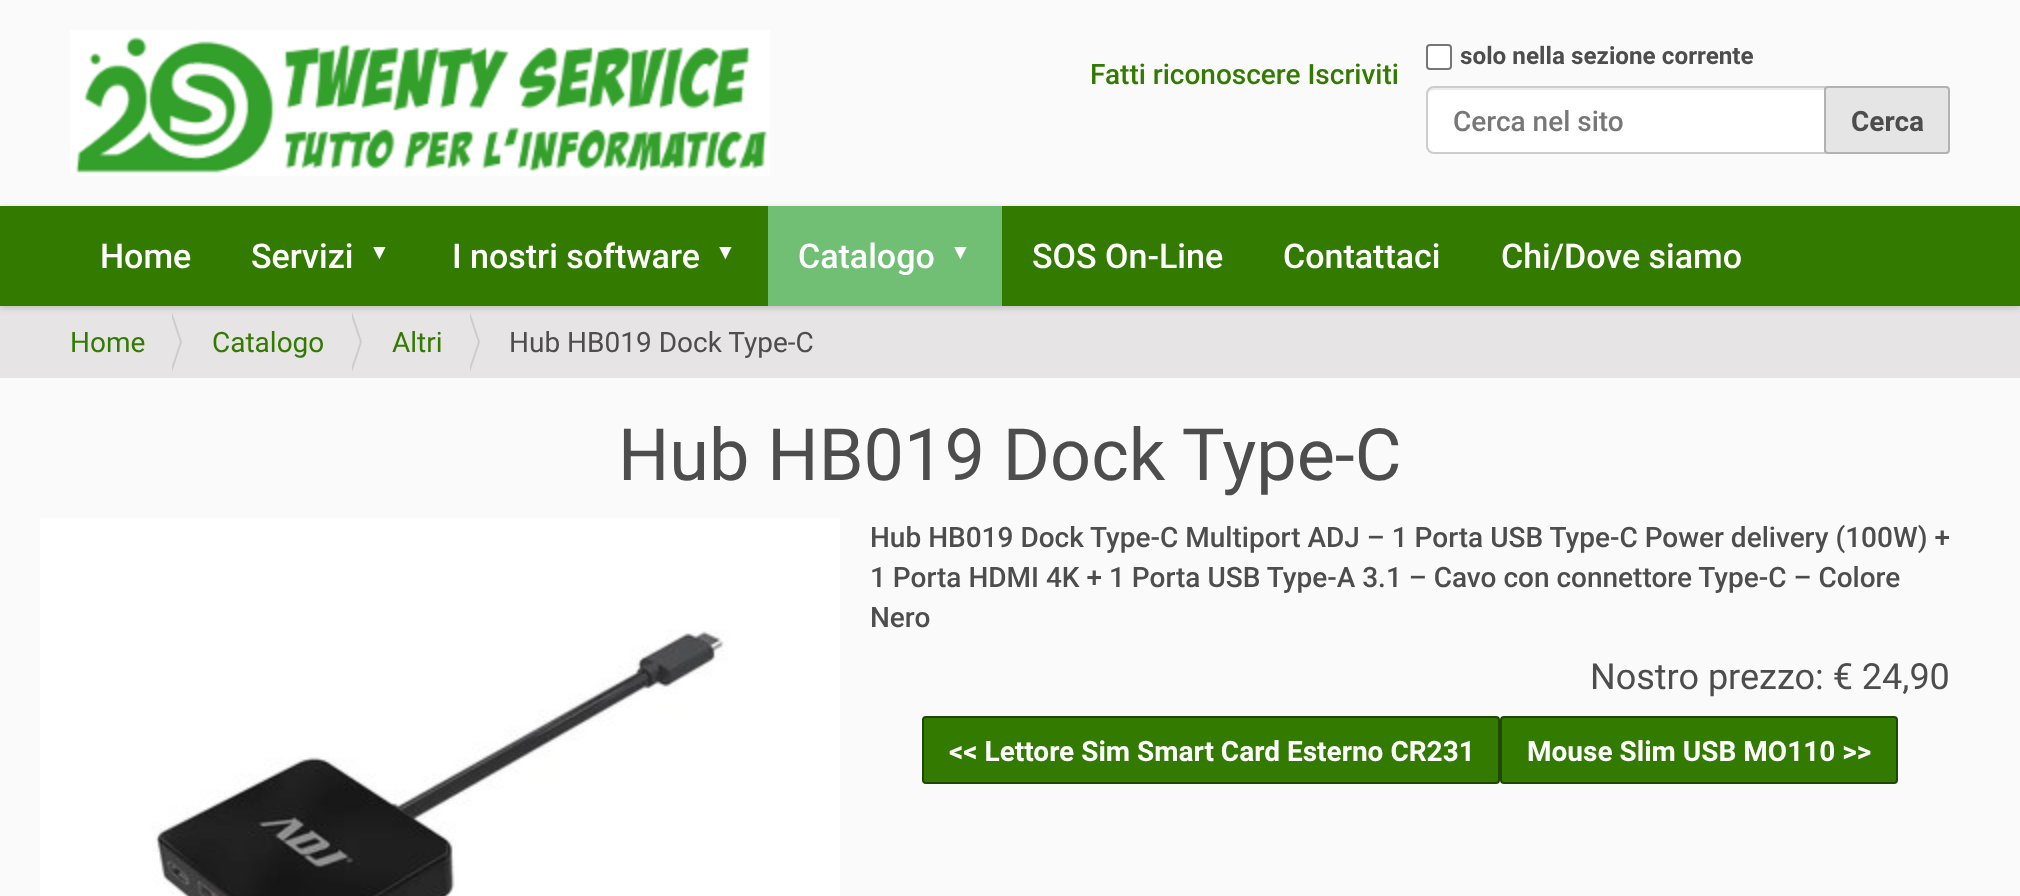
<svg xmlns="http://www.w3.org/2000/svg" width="2020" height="896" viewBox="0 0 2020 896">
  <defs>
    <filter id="blur1" x="-50%" y="-200%" width="200%" height="500%"><feGaussianBlur stdDeviation="3"/></filter>
  </defs>
  <rect width="100%" height="100%" fill="#fafafa"/>
  <image x="70" y="30" width="700" height="146" href="img1.png"/>
  <text x="1090" y="84" font-family="Roboto" font-size="28" font-weight="500" fill="#337a00">Fatti riconoscere Iscriviti</text>
  <rect x="1427" y="45" width="24" height="24" rx="3" fill="#ffffff" stroke="#767676" stroke-width="2"/>
  <text x="1460" y="64" font-family="Roboto" font-size="24.25" font-weight="bold" fill="#4d4d4d">solo nella sezione corrente</text>
  <path d="M1434 86H1826V154H1434C1429.5 154 1426 150.5 1426 146V94C1426 89.5 1429.5 86 1434 86Z" fill="#ffffff"/>
  <path d="M1434 90H1824V88H1434C1429 88 1428 92 1428 96C1428 93 1431 90 1434 90Z" fill="#ececec"/>
  <path d="M1434 87H1825V153H1434C1430 153 1427 150 1427 146V94C1427 90 1430 87 1434 87Z" fill="none" stroke="#cccccc" stroke-width="2"/>
  <text x="1453" y="131" font-family="Roboto" font-size="28" font-weight="500" fill="#777777">Cerca nel sito</text>
  <rect x="1825" y="87" width="124" height="66" rx="3" fill="#e5e5e5" stroke="#b2b2b2" stroke-width="2"/>
  <text x="1851" y="131" font-family="Roboto" font-size="28" font-weight="bold" fill="#4d4d4d">Cerca</text>
  <rect x="0" y="306" width="2020" height="72" fill="#e6e4e4"/>
  <rect x="0" y="208" width="2020" height="100" fill="#000000" fill-opacity="0.17" filter="url(#blur1)"/>
  <rect x="0" y="206" width="2020" height="100" fill="#337a00"/>
  <text x="100" y="268" font-family="Roboto" font-size="34" font-weight="500" fill="#ffffff">Home</text>
  <text x="251" y="268" font-family="Roboto" font-size="34" font-weight="500" fill="#ffffff">Servizi</text>
  <text x="369" y="259" font-family="Liberation Sans" font-size="21" font-weight="bold" fill="#ffffff">▼</text>
  <text x="452" y="268" font-family="Roboto" font-size="34" font-weight="500" fill="#ffffff">I nostri software</text>
  <text x="715" y="259" font-family="Liberation Sans" font-size="21" font-weight="bold" fill="#ffffff">▼</text>
  <rect x="768" y="206" width="234" height="100" fill="#70bf75"/>
  <text x="798" y="268" font-family="Roboto" font-size="34" font-weight="500" fill="#ffffff">Catalogo</text>
  <text x="950" y="259" font-family="Liberation Sans" font-size="21" font-weight="bold" fill="#ffffff">▼</text>
  <text x="1032" y="268" font-family="Roboto" font-size="34" font-weight="500" fill="#ffffff">SOS On-Line</text>
  <text x="1283" y="268" font-family="Roboto" font-size="34" font-weight="500" fill="#ffffff">Contattaci</text>
  <text x="1501" y="268" font-family="Roboto" font-size="34" font-weight="500" fill="#ffffff">Chi/Dove siamo</text>
  <text x="70" y="352" font-family="Roboto" font-size="28" fill="#337a00">Home</text>
  <path d="M172 372V312L182 342Z" fill="#cccccc"/>
  <path d="M170 372V312L180 342Z" fill="#e6e4e4"/>
  <text x="212" y="352" font-family="Roboto" font-size="28" fill="#337a00">Catalogo</text>
  <path d="M352 372V312L362 342Z" fill="#cccccc"/>
  <path d="M350 372V312L360 342Z" fill="#e6e4e4"/>
  <text x="392" y="352" font-family="Roboto" font-size="28" fill="#337a00">Altri</text>
  <path d="M470 372V312L480 342Z" fill="#cccccc"/>
  <path d="M468 372V312L478 342Z" fill="#e6e4e4"/>
  <text x="509" y="352" font-family="Roboto" font-size="28" fill="#4d4d4d">Hub HB019 Dock Type-C</text>
  <text x="618" y="480" font-family="Roboto" font-size="72" fill="#4d4d4d">Hub HB019 Dock Type-C</text>
  <image x="40" y="518" width="800" height="378" href="img2.png"/>
  <text x="870" y="547" font-family="Roboto" font-size="28" font-weight="500" fill="#4d4d4d">Hub HB019 Dock Type-C Multiport ADJ – 1 Porta USB Type-C Power delivery (100W) +</text>
  <text x="870" y="587" font-family="Roboto" font-size="28" font-weight="500" fill="#4d4d4d">1 Porta HDMI 4K + 1 Porta USB Type-A 3.1 – Cavo con connettore Type-C – Colore</text>
  <text x="870" y="627" font-family="Roboto" font-size="28" font-weight="500" fill="#4d4d4d">Nero</text>
  <text x="1590" y="689" font-family="Roboto" font-size="36" fill="#4d4d4d">Nostro prezzo: € 24,90</text>
  <rect x="923" y="717" width="576" height="66" rx="3" fill="#337a00" stroke="#1e4700" stroke-width="2"/>
  <text x="949" y="761" font-family="Roboto" font-size="28" font-weight="bold" fill="#ffffff">&lt;&lt; Lettore Sim Smart Card Esterno CR231</text>
  <rect x="1501" y="717" width="396" height="66" rx="3" fill="#337a00" stroke="#1e4700" stroke-width="2"/>
  <text x="1527" y="761" font-family="Roboto" font-size="28" font-weight="bold" fill="#ffffff">Mouse Slim USB MO110 &gt;&gt;</text>
</svg>
